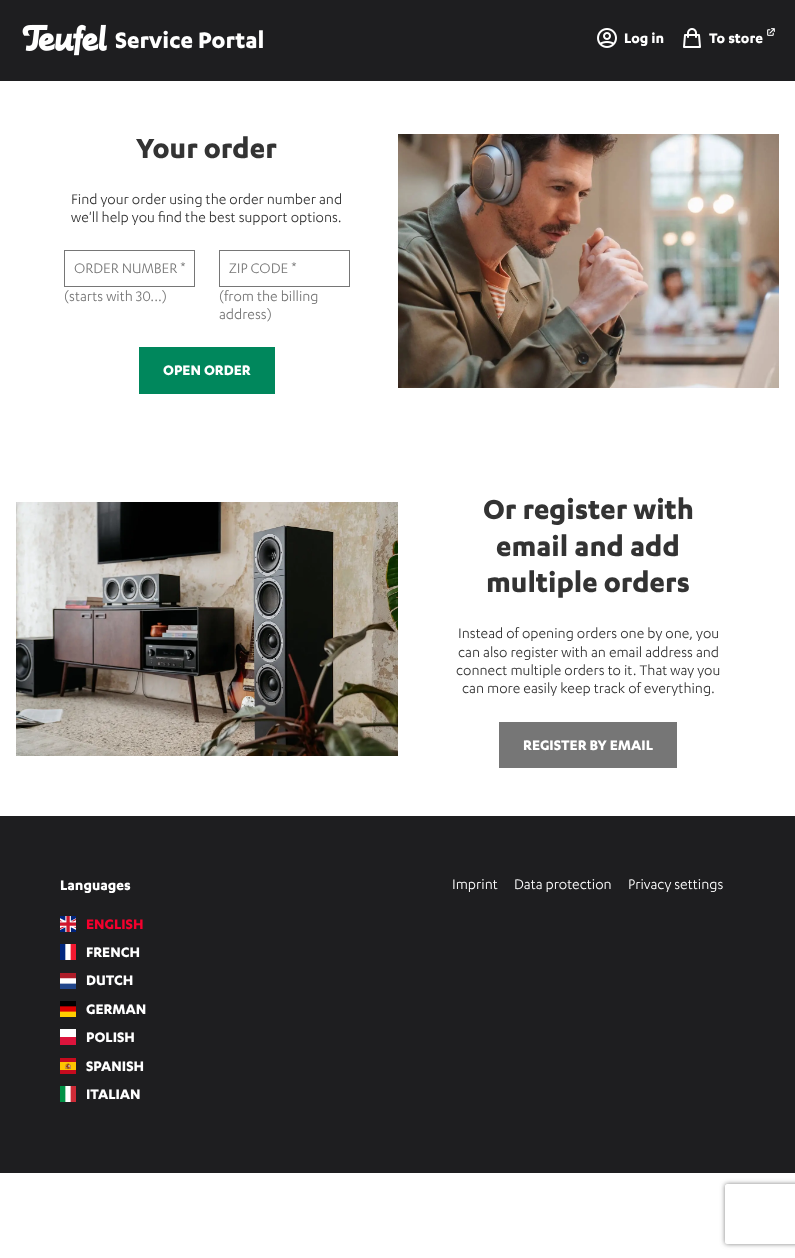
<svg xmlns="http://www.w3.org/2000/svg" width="795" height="1258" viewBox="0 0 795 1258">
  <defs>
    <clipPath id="clip1"><path d="M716 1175H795V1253H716ZM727 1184H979C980 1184 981 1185 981 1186V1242C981 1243 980 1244 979 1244H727C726 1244 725 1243 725 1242V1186C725 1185 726 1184 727 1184Z" clip-rule="evenodd"/></clipPath>
    <filter id="blur1" x="-50%" y="-200%" width="200%" height="500%"><feGaussianBlur stdDeviation="2.5"/></filter>
  </defs>
  <rect width="100%" height="100%" fill="#ffffff"/>
  <rect x="0" y="0" width="795" height="81" fill="#1e1e20"/>
  <image x="22" y="24" width="85" height="32" href="img1.png"/>
  <text x="115" y="48" font-family="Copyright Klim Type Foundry" font-size="26" font-weight="bold" fill="#ffffff">Service Portal</text>
  <image x="597" y="28" width="20" height="20" href="img2.png"/>
  <text x="624" y="43" font-family="Copyright Klim Type Foundry" font-size="16" font-weight="bold" fill="#ffffff">Log in</text>
  <image x="683" y="28" width="18" height="20" href="img3.png"/>
  <image x="767" y="28" width="8" height="8" href="img4.png"/>
  <text x="709" y="43" font-family="Copyright Klim Type Foundry" font-size="16" font-weight="bold" fill="#ffffff">To store</text>
  <text x="136" y="158" font-family="Copyright Klim Type Foundry" font-size="32" font-weight="bold" fill="#333333">Your order</text>
  <text x="71" y="204" font-family="Copyright Klim Type Foundry" font-size="16" fill="#333333">Find your order using the order number and</text>
  <text x="71" y="222" font-family="Copyright Klim Type Foundry" font-size="16" fill="#333333">we'll help you find the best support options.</text>
  <rect x="64.5" y="250.5" width="130" height="36" fill="none" stroke="#767676"/>
  <text x="74" y="273" font-family="Copyright Klim Type Foundry" font-size="16" fill="#767676">ORDER NUMBER *</text>
  <text x="64" y="301" font-family="Copyright Klim Type Foundry" font-size="16" fill="#767676">(starts with 30...)</text>
  <rect x="219.5" y="250.5" width="130" height="36" fill="none" stroke="#767676"/>
  <text x="229" y="273" font-family="Copyright Klim Type Foundry" font-size="16" fill="#767676">ZIP CODE *</text>
  <text x="219" y="301" font-family="Copyright Klim Type Foundry" font-size="16" fill="#767676">(from the billing</text>
  <text x="219" y="319" font-family="Copyright Klim Type Foundry" font-size="16" fill="#767676">address)</text>
  <rect x="139" y="347" width="136" height="47" fill="#00875c"/>
  <text x="163" y="375" font-family="Copyright Klim Type Foundry" font-size="16" font-weight="bold" fill="#ffffff">OPEN ORDER</text>
  <image x="398" y="134" width="381" height="254" href="img5.png"/>
  <image x="16" y="502" width="382" height="254" href="img6.png"/>
  <text x="483" y="519" font-family="Copyright Klim Type Foundry" font-size="32" font-weight="bold" fill="#333333">Or register with</text>
  <text x="496" y="556" font-family="Copyright Klim Type Foundry" font-size="32" font-weight="bold" fill="#333333">email and add</text>
  <text x="486" y="592" font-family="Copyright Klim Type Foundry" font-size="32" font-weight="bold" fill="#333333">multiple orders</text>
  <text x="458" y="638" font-family="Copyright Klim Type Foundry" font-size="16" fill="#333333">Instead of opening orders one by one, you</text>
  <text x="458" y="657" font-family="Copyright Klim Type Foundry" font-size="16" fill="#333333">can also register with an email address and</text>
  <text x="456" y="675" font-family="Copyright Klim Type Foundry" font-size="16" fill="#333333">connect multiple orders to it. That way you</text>
  <text x="462" y="693" font-family="Copyright Klim Type Foundry" font-size="16" fill="#333333">can more easily keep track of everything.</text>
  <rect x="499" y="722" width="178" height="46" fill="#767676"/>
  <text x="523" y="750" font-family="Copyright Klim Type Foundry" font-size="16" font-weight="bold" fill="#ffffff">REGISTER BY EMAIL</text>
  <rect x="0" y="816" width="795" height="357" fill="#1e1e20"/>
  <text x="60" y="890" font-family="Copyright Klim Type Foundry" font-size="16" font-weight="bold" fill="#ffffff">Languages</text>
  <image x="60" y="916" width="16" height="16" href="img7.png"/>
  <text x="86" y="929" font-family="Copyright Klim Type Foundry" font-size="16" font-weight="bold" fill="#f5002d">ENGLISH</text>
  <image x="60" y="944" width="16" height="16" href="img8.png"/>
  <text x="86" y="957" font-family="Copyright Klim Type Foundry" font-size="16" font-weight="bold" fill="#ffffff">FRENCH</text>
  <image x="60" y="973" width="16" height="16" href="img9.png"/>
  <text x="86" y="985" font-family="Copyright Klim Type Foundry" font-size="16" font-weight="bold" fill="#ffffff">DUTCH</text>
  <image x="60" y="1001" width="16" height="16" href="img10.png"/>
  <text x="86" y="1014" font-family="Copyright Klim Type Foundry" font-size="16" font-weight="bold" fill="#ffffff">GERMAN</text>
  <image x="60" y="1029" width="16" height="16" href="img11.png"/>
  <text x="86" y="1042" font-family="Copyright Klim Type Foundry" font-size="16" font-weight="bold" fill="#ffffff">POLISH</text>
  <image x="60" y="1058" width="16" height="16" href="img12.png"/>
  <text x="86" y="1071" font-family="Copyright Klim Type Foundry" font-size="16" font-weight="bold" fill="#ffffff">SPANISH</text>
  <image x="60" y="1086" width="16" height="16" href="img13.png"/>
  <text x="86" y="1099" font-family="Copyright Klim Type Foundry" font-size="16" font-weight="bold" fill="#ffffff">ITALIAN</text>
  <text x="452" y="889" font-family="Copyright Klim Type Foundry" font-size="16" fill="#ffffff">Imprint</text>
  <text x="514" y="889" font-family="Copyright Klim Type Foundry" font-size="16" fill="#ffffff">Data protection</text>
  <text x="628" y="889" font-family="Copyright Klim Type Foundry" font-size="16" fill="#ffffff">Privacy settings</text>
  <g clip-path="url(#clip1)">
    <rect x="725" y="1184" width="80" height="60" rx="2" fill="#808080" filter="url(#blur1)"/>
  </g>
</svg>
